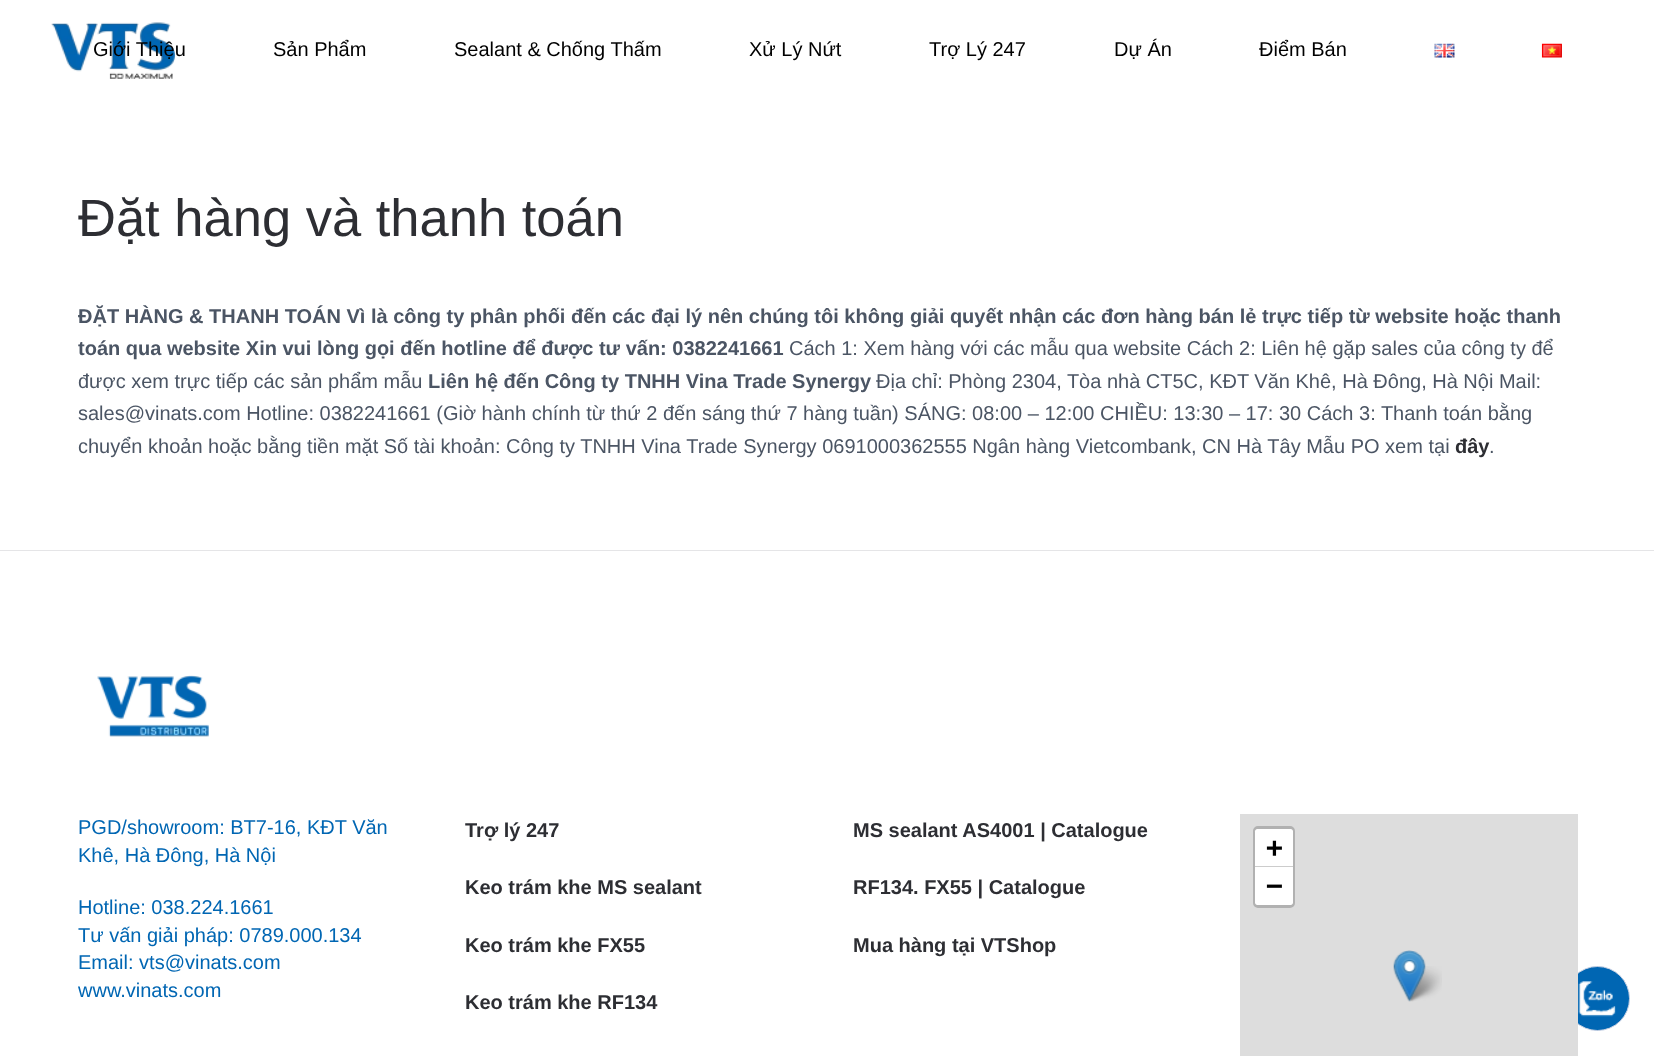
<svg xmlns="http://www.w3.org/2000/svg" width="1654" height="1056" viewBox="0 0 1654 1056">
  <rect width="100%" height="100%" fill="#ffffff"/>
  <image x="51" y="22" width="124" height="57" href="img1.png"/>
  <text x="93" y="56" font-family="Liberation Sans" font-size="20" fill="#000000">Giới Thiệu</text>
  <text x="273" y="56" font-family="Liberation Sans" font-size="20" fill="#000000">Sản Phẩm</text>
  <text x="454" y="56" font-family="Liberation Sans" font-size="20" fill="#000000">Sealant &amp; Chống Thấm</text>
  <text x="749" y="56" font-family="Liberation Sans" font-size="20" fill="#000000">Xử Lý Nứt</text>
  <text x="929" y="56" font-family="Liberation Sans" font-size="20" fill="#000000">Trợ Lý 247</text>
  <text x="1114" y="56" font-family="Liberation Sans" font-size="20" fill="#000000">Dự Án</text>
  <text x="1259" y="56" font-family="Liberation Sans" font-size="20" fill="#000000">Điểm Bán</text>
  <image x="1434" y="43" width="21" height="15" href="img2.png"/>
  <image x="1541" y="43" width="21" height="15" href="img3.png"/>
  <text x="78" y="236" font-family="Liberation Sans" font-size="52.5" fill="#2d2e33">Đặt hàng và thanh toán</text>
  <text x="78" y="323" font-family="Liberation Sans" font-size="20" font-weight="bold" fill="#4b5564">ĐẶT HÀNG &amp; THANH TOÁN Vì là công ty phân phối đến các đại lý nên chúng tôi không giải quyết nhận các đơn hàng bán lẻ trực tiếp từ website hoặc thanh</text>
  <text x="78" y="355" font-family="Liberation Sans" font-size="20" font-weight="bold" fill="#4b5564">toán qua website Xin vui lòng gọi đến hotline để được tư vấn: 0382241661</text>
  <text x="789" y="355" font-family="Liberation Sans" font-size="20" fill="#4b5564">Cách 1: Xem hàng với các mẫu qua website Cách 2: Liên hệ gặp sales của công ty để</text>
  <text x="78" y="388" font-family="Liberation Sans" font-size="20" fill="#4b5564">được xem trực tiếp các sản phẩm mẫu</text>
  <text x="428" y="388" font-family="Liberation Sans" font-size="20" font-weight="bold" fill="#4b5564">Liên hệ đến Công ty TNHH Vina Trade Synergy</text>
  <text x="876" y="388" font-family="Liberation Sans" font-size="20" fill="#4b5564">Địa chỉ: Phòng 2304, Tòa nhà CT5C, KĐT Văn Khê, Hà Đông, Hà Nội Mail:</text>
  <text x="78" y="420" font-family="Liberation Sans" font-size="20" fill="#4b5564">sales@vinats.com Hotline: 0382241661 (Giờ hành chính từ thứ 2 đến sáng thứ 7 hàng tuần) SÁNG: 08:00 – 12:00 CHIỀU: 13:30 – 17: 30 Cách 3: Thanh toán bằng</text>
  <text x="78" y="453" font-family="Liberation Sans" font-size="20" fill="#4b5564">chuyển khoản hoặc bằng tiền mặt Số tài khoản: Công ty TNHH Vina Trade Synergy 0691000362555 Ngân hàng Vietcombank, CN Hà Tây Mẫu PO xem tại</text>
  <text x="1455" y="453" font-family="Liberation Sans" font-size="20" font-weight="bold" fill="#2d2e33">đây</text>
  <text x="1489" y="453" font-family="Liberation Sans" font-size="20" fill="#4b5564">.</text>
  <rect x="0" y="550" width="1654" height="1" fill="#e5e5e7"/>
  <image x="97" y="675" width="112" height="62" href="img4.png"/>
  <text x="78" y="834" font-family="Liberation Sans" font-size="20" fill="#0066b3">PGD/showroom: BT7-16, KĐT Văn</text>
  <text x="78" y="862" font-family="Liberation Sans" font-size="20" fill="#0066b3">Khê, Hà Đông, Hà Nội</text>
  <text x="78" y="914" font-family="Liberation Sans" font-size="20" fill="#0066b3">Hotline: 038.224.1661</text>
  <text x="78" y="942" font-family="Liberation Sans" font-size="20" fill="#0066b3">Tư vấn giải pháp: 0789.000.134</text>
  <text x="78" y="969" font-family="Liberation Sans" font-size="20" fill="#0066b3">Email: vts@vinats.com</text>
  <text x="78" y="997" font-family="Liberation Sans" font-size="20" fill="#0066b3">www.vinats.com</text>
  <text x="465" y="837" font-family="Liberation Sans" font-size="20" font-weight="bold" fill="#2d2e33">Trợ lý 247</text>
  <text x="465" y="894" font-family="Liberation Sans" font-size="20" font-weight="bold" fill="#2d2e33">Keo trám khe MS sealant</text>
  <text x="465" y="952" font-family="Liberation Sans" font-size="20" font-weight="bold" fill="#2d2e33">Keo trám khe FX55</text>
  <text x="465" y="1009" font-family="Liberation Sans" font-size="20" font-weight="bold" fill="#2d2e33">Keo trám khe RF134</text>
  <text x="853" y="837" font-family="Liberation Sans" font-size="20" font-weight="bold" fill="#2d2e33">MS sealant AS4001 | Catalogue</text>
  <text x="853" y="894" font-family="Liberation Sans" font-size="20" font-weight="bold" fill="#2d2e33">RF134. FX55 | Catalogue</text>
  <text x="853" y="952" font-family="Liberation Sans" font-size="20" font-weight="bold" fill="#2d2e33">Mua hàng tại VTShop</text>
  <circle cx="1597.5" cy="998.5" r="32" fill="#0066b3" stroke="#c3cee2"/>
  <rect x="1240" y="814" width="338" height="242" fill="#dddddd"/>
  <rect x="1254.5" y="827.5" width="39" height="79" rx="3.5" fill="none" stroke="#b1b1b1" stroke-width="3"/>
  <path d="M1257.5 829H1290.5C1292 829 1293 830 1293 831.5V868H1255V831.5C1255 830 1256 829 1257.5 829Z" fill="#ffffff"/>
  <rect x="1255" y="866" width="38" height="1" fill="#cccccc"/>
  <text x="1266" y="857" font-family="DejaVu Sans Mono" font-size="28" font-weight="bold" fill="#000000">+</text>
  <path d="M1255 868H1293V902.5C1293 904 1292 905 1290.5 905H1257.5C1256 905 1255 904 1255 902.5Z" fill="#ffffff"/>
  <text x="1266" y="895" font-family="DejaVu Sans Mono" font-size="28" font-weight="bold" fill="#000000">−</text>
  <image x="1405" y="966" width="37" height="36" href="img6.png"/>
  <image x="1393" y="950" width="33" height="52" href="img5.png"/>
  <image x="1578" y="981" width="38" height="36" href="img7.png"/>
</svg>
